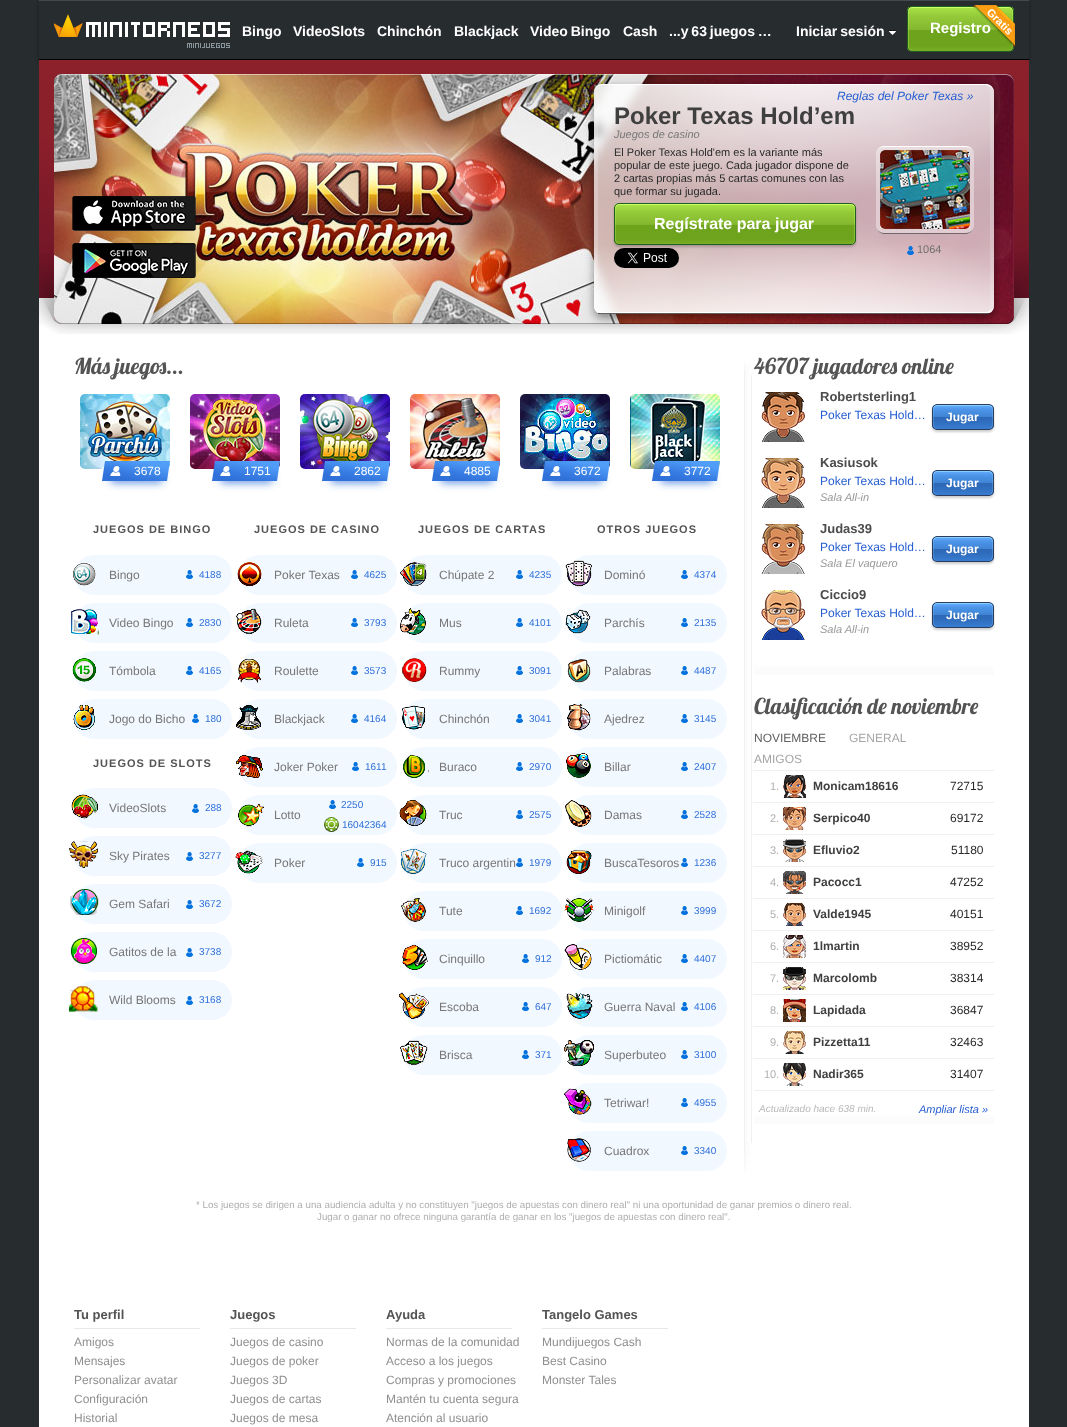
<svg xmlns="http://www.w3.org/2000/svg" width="1067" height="1427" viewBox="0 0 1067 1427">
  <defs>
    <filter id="blur1" x="-50%" y="-200%" width="200%" height="500%"><feGaussianBlur stdDeviation="2.5"/></filter>
    <clipPath id="clip1"><rect x="907" y="6" width="107" height="46" rx="5"/></clipPath>
    <linearGradient id="g1" gradientUnits="userSpaceOnUse" x1="961" y1="7" x2="961" y2="51"><stop offset="0" stop-color="#a8e446"/><stop offset="0.21" stop-color="#94ca39"/><stop offset="0.51" stop-color="#85b82f"/><stop offset="0.53" stop-color="#6ea31d"/><stop offset="0.88" stop-color="#6ea31d"/><stop offset="1" stop-color="#7aae26"/></linearGradient>
    <linearGradient id="g2" gradientUnits="userSpaceOnUse" x1="534" y1="60" x2="534" y2="298"><stop offset="0" stop-color="#8c202b"/><stop offset="0.32" stop-color="#8c202b"/><stop offset="1" stop-color="#6c1327"/></linearGradient>
    <clipPath id="clip2"><path d="M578 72H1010V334H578ZM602 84H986C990.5 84 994 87.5 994 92V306C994 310.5 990.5 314 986 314H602C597.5 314 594 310.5 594 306V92C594 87.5 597.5 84 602 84Z" clip-rule="evenodd"/></clipPath>
    <filter id="blur2" x="-50%" y="-200%" width="200%" height="500%"><feGaussianBlur stdDeviation="5"/></filter>
    <clipPath id="clip3"><rect x="594" y="84" width="400" height="230" rx="8"/></clipPath>
    <radialGradient id="g3" gradientUnits="userSpaceOnUse" cx="0" cy="0" r="1" gradientTransform="matrix(300 0 0 215 794 428)"><stop offset="0" stop-color="#ffffff"/><stop offset="1" stop-color="#ffffff" stop-opacity="0"/></radialGradient>
    <radialGradient id="g4" gradientUnits="userSpaceOnUse" cx="0" cy="0" r="1" gradientTransform="matrix(300 0 0 160 794 38)"><stop offset="0" stop-color="#ffffff"/><stop offset="1" stop-color="#ffffff" stop-opacity="0"/></radialGradient>
    <radialGradient id="g5" gradientUnits="userSpaceOnUse" cx="0" cy="0" r="1" gradientTransform="matrix(300 0 0 160 794 267)"><stop offset="0" stop-color="#ffffff"/><stop offset="1" stop-color="#ffffff" stop-opacity="0"/></radialGradient>
    <linearGradient id="g6" gradientUnits="userSpaceOnUse" x1="794" y1="84" x2="794" y2="313"><stop offset="0" stop-color="#ffffff" stop-opacity="0.75"/><stop offset="0.5" stop-color="#ffffff" stop-opacity="0.65"/><stop offset="0.7" stop-color="#ffffff" stop-opacity="0.65"/><stop offset="1" stop-color="#ffffff" stop-opacity="0.85"/></linearGradient>
    <linearGradient id="g7" gradientUnits="userSpaceOnUse" x1="794" y1="313" x2="794" y2="542"><stop offset="0" stop-color="#ffffff" stop-opacity="0.75"/><stop offset="0.5" stop-color="#ffffff" stop-opacity="0.65"/><stop offset="0.7" stop-color="#ffffff" stop-opacity="0.65"/><stop offset="1" stop-color="#ffffff" stop-opacity="0.85"/></linearGradient>
    <filter id="blur3" x="-50%" y="-200%" width="200%" height="500%"><feGaussianBlur stdDeviation="1"/></filter>
    <clipPath id="clip4"><rect x="614" y="203" width="242" height="42" rx="5"/></clipPath>
    <linearGradient id="g8" gradientUnits="userSpaceOnUse" x1="735" y1="204" x2="735" y2="244"><stop offset="0" stop-color="#a8e446"/><stop offset="0.21" stop-color="#94ca39"/><stop offset="0.51" stop-color="#85b82f"/><stop offset="0.53" stop-color="#6ea31d"/><stop offset="0.88" stop-color="#6ea31d"/><stop offset="1" stop-color="#7aae26"/></linearGradient>
    <filter id="blur4" x="-50%" y="-200%" width="200%" height="500%"><feGaussianBlur stdDeviation="4"/></filter>
    <linearGradient id="g9" gradientUnits="userSpaceOnUse" x1="138" y1="461" x2="134" y2="481"><stop offset="0.02" stop-color="#519ef9"/><stop offset="0.64" stop-color="#387de3"/><stop offset="1" stop-color="#2f70d9"/></linearGradient>
    <linearGradient id="g10" gradientUnits="userSpaceOnUse" x1="248" y1="461" x2="244" y2="481"><stop offset="0.02" stop-color="#519ef9"/><stop offset="0.64" stop-color="#387de3"/><stop offset="1" stop-color="#2f70d9"/></linearGradient>
    <linearGradient id="g11" gradientUnits="userSpaceOnUse" x1="358" y1="461" x2="354" y2="481"><stop offset="0.02" stop-color="#519ef9"/><stop offset="0.64" stop-color="#387de3"/><stop offset="1" stop-color="#2f70d9"/></linearGradient>
    <linearGradient id="g12" gradientUnits="userSpaceOnUse" x1="468" y1="461" x2="464" y2="481"><stop offset="0.02" stop-color="#519ef9"/><stop offset="0.64" stop-color="#387de3"/><stop offset="1" stop-color="#2f70d9"/></linearGradient>
    <linearGradient id="g13" gradientUnits="userSpaceOnUse" x1="578" y1="461" x2="574" y2="481"><stop offset="0.02" stop-color="#519ef9"/><stop offset="0.64" stop-color="#387de3"/><stop offset="1" stop-color="#2f70d9"/></linearGradient>
    <linearGradient id="g14" gradientUnits="userSpaceOnUse" x1="688" y1="461" x2="684" y2="481"><stop offset="0.02" stop-color="#519ef9"/><stop offset="0.64" stop-color="#387de3"/><stop offset="1" stop-color="#2f70d9"/></linearGradient>
    <clipPath id="clip5"><rect x="932" y="404" width="62" height="26" rx="5"/></clipPath>
    <linearGradient id="g15" gradientUnits="userSpaceOnUse" x1="963" y1="405" x2="963" y2="429"><stop offset="0" stop-color="#66adfe"/><stop offset="0.19" stop-color="#4c95e9"/><stop offset="0.5" stop-color="#3f83d3"/><stop offset="0.52" stop-color="#2d69b7"/><stop offset="0.64" stop-color="#2e6bba"/><stop offset="1" stop-color="#387cd1"/></linearGradient>
    <clipPath id="clip6"><rect x="932" y="470" width="62" height="26" rx="5"/></clipPath>
    <linearGradient id="g16" gradientUnits="userSpaceOnUse" x1="963" y1="471" x2="963" y2="495"><stop offset="0" stop-color="#66adfe"/><stop offset="0.19" stop-color="#4c95e9"/><stop offset="0.5" stop-color="#3f83d3"/><stop offset="0.52" stop-color="#2d69b7"/><stop offset="0.64" stop-color="#2e6bba"/><stop offset="1" stop-color="#387cd1"/></linearGradient>
    <clipPath id="clip7"><rect x="932" y="536" width="62" height="26" rx="5"/></clipPath>
    <linearGradient id="g17" gradientUnits="userSpaceOnUse" x1="963" y1="537" x2="963" y2="561"><stop offset="0" stop-color="#66adfe"/><stop offset="0.19" stop-color="#4c95e9"/><stop offset="0.5" stop-color="#3f83d3"/><stop offset="0.52" stop-color="#2d69b7"/><stop offset="0.64" stop-color="#2e6bba"/><stop offset="1" stop-color="#387cd1"/></linearGradient>
    <clipPath id="clip8"><rect x="932" y="602" width="62" height="26" rx="5"/></clipPath>
    <linearGradient id="g18" gradientUnits="userSpaceOnUse" x1="963" y1="603" x2="963" y2="627"><stop offset="0" stop-color="#66adfe"/><stop offset="0.19" stop-color="#4c95e9"/><stop offset="0.5" stop-color="#3f83d3"/><stop offset="0.52" stop-color="#2d69b7"/><stop offset="0.64" stop-color="#2e6bba"/><stop offset="1" stop-color="#387cd1"/></linearGradient>
    <linearGradient id="g19" gradientUnits="userSpaceOnUse" x1="874" y1="652" x2="874" y2="675"><stop offset="0" stop-color="#ffffff"/><stop offset="1" stop-color="#fbfbfb"/></linearGradient>
    <linearGradient id="g20" gradientUnits="userSpaceOnUse" x1="874" y1="1101" x2="874" y2="1124"><stop offset="0" stop-color="#ffffff"/><stop offset="1" stop-color="#fbfbfb"/></linearGradient>
  </defs>
  <rect width="100%" height="100%" fill="#272c2e"/>
  <rect x="39" y="298" width="990" height="1129" fill="#ffffff"/>
  <rect x="39" y="2" width="990" height="60" fill="#000000" fill-opacity="0.3" filter="url(#blur1)"/>
  <rect x="39" y="1" width="990" height="58" fill="#272c2e"/>
  <rect x="39" y="0" width="990" height="1" fill="#424a4d"/>
  <rect x="39" y="59" width="990" height="1" fill="#000000"/>
  <image x="54" y="14" width="176" height="34" href="img1.png"/>
  <text x="242" y="36" font-family="Liberation Sans" font-size="14" font-weight="bold" fill="#ffffff">Bingo</text>
  <text x="293" y="36" font-family="Liberation Sans" font-size="14" font-weight="bold" fill="#ffffff">VideoSlots</text>
  <text x="377" y="36" font-family="Liberation Sans" font-size="14" font-weight="bold" fill="#ffffff">Chinchón</text>
  <text x="454" y="36" font-family="Liberation Sans" font-size="14" font-weight="bold" fill="#ffffff">Blackjack</text>
  <text x="530" y="36" word-spacing="-1" font-family="Liberation Sans" font-size="14" font-weight="bold" fill="#ffffff">Video Bingo</text>
  <text x="623" y="36" font-family="Liberation Sans" font-size="14" font-weight="bold" fill="#ffffff">Cash</text>
  <text x="669" y="36" word-spacing="-1" font-family="Liberation Sans" font-size="14" font-weight="bold" fill="#ffffff">...y 63 juegos …</text>
  <text x="796" y="36" word-spacing="-1" font-family="Liberation Sans" font-size="14" font-weight="bold" fill="#ffffff">Iniciar sesión</text>
  <image x="889" y="30" width="7" height="5" href="img2.png"/>
  <g clip-path="url(#clip1)">
    <rect x="907" y="7" width="107" height="44" fill="url(#g1)"/>
  </g>
  <path d="M912 7C910 7 908 9 908 11V47C908 49 910 51 912 51H913C911 51 909 49 909 47V11C909 9 911 7 913 7Z" fill="#caff67" fill-opacity="0.3"/>
  <path d="M1008 51C1014 51 1013 46 1013 41V17C1013 12 1014 7 1008 7C1010 7 1012 9 1012 11V47C1012 49 1010 51 1008 51Z" fill="#caff67" fill-opacity="0.3"/>
  <path d="M912 8H1009C1011 8 1013 10 1013 12C1013 3 997 7 993 7H928C924 7 908 3 908 12C908 10 910 8 912 8Z" fill="#caff67"/>
  <rect x="907.5" y="6.5" width="106" height="45" rx="4.5" fill="none" stroke="#205f21"/>
  <text x="930" y="33" font-family="Liberation Sans" font-size="15" font-weight="bold" fill="#ffffff">Registro</text>
  <image x="973" y="5" width="42" height="42" href="img3.png"/>
  <text x="986" y="13" transform="rotate(45 986 13)" font-family="Liberation Sans" font-size="11" font-weight="bold" fill="#ffffff">Gratis</text>
  <rect x="39" y="60" width="990" height="238" fill="url(#g2)"/>
  <image x="39" y="74" width="990" height="125" href="img4.png"/>
  <image x="39" y="253" width="990" height="81" href="img5.png"/>
  <rect x="54" y="74" width="960" height="250" rx="8" fill="#6c1327"/>
  <image x="54" y="74" width="960" height="250" href="img6.png"/>
  <path d="M54 315C54 320 57 324 62 324H1006C1011 324 1014 320 1014 315C1014 319 1010 323 1006 323H62C58 323 54 319 54 315Z" fill="#000000" fill-opacity="0.3"/>
  <path d="M62 75H1006C1010 75 1014 79 1014 83C1014 78 1011 74 1006 74H62C57 74 54 78 54 83C54 79 58 75 62 75Z" fill="#ffffff" fill-opacity="0.5"/>
  <image x="72" y="196" width="124" height="35" href="img7.png"/>
  <g clip-path="url(#clip2)">
    <rect x="594" y="88" width="400" height="230" rx="8" fill="#000000" fill-opacity="0.43" filter="url(#blur2)"/>
  </g>
  <g clip-path="url(#clip3)">
    <path d="M602 84H986C990.5 84 994 87.5 994 92V313H594V92C594 87.5 597.5 84 602 84Z" fill="url(#g3)"/>
    <path d="M602 84H986C990.5 84 994 87.5 994 92V313H594V92C594 87.5 597.5 84 602 84Z" fill="url(#g4)"/>
    <rect x="594" y="313" width="400" height="1" fill="url(#g5)"/>
    <path d="M602 84H986C990.5 84 994 87.5 994 92V313H594V92C594 87.5 597.5 84 602 84Z" fill="url(#g6)"/>
    <rect x="594" y="313" width="400" height="1" fill="url(#g7)"/>
  </g>
  <path d="M602 84C598 84 594 88 594 92V306C594 310 598 313 602 313H606C602 313 598 310 598 306V92C598 88 602 84 606 84Z" fill="#ffffff" fill-opacity="0.2"/>
  <path d="M982 313H986C990 313 994 310 994 306V92C994 88 990 84 986 84H982C986 84 990 88 990 92V306C990 310 986 313 982 313Z" fill="#ffffff" fill-opacity="0.2"/>
  <path d="M594 305C594 310 597 313 602 313H986C991 313 994 310 994 305C994 309 990 312 986 312H602C598 312 594 309 594 305Z" fill="#ffffff"/>
  <path d="M602 85H986C990 85 994 89 994 93V92C994 88 990 84 986 84H602C598 84 594 88 594 92V93C594 89 598 85 602 85Z" fill="#ffffff"/>
  <rect x="598" y="313" width="392" height="1" fill="#000000" fill-opacity="0.6"/>
  <text x="837" y="100" font-family="Liberation Sans" font-size="12" font-style="italic" fill="#255dd1">Reglas del Poker Texas »</text>
  <text x="614" y="124" font-family="Liberation Sans" font-size="24" font-weight="bold" fill="#3f3f3f">Poker Texas Hold’em</text>
  <text x="614" y="138" font-family="Liberation Sans" font-size="11" font-style="italic" fill="#777777">Juegos de casino</text>
  <text x="614" y="156" font-family="Liberation Sans" font-size="11" fill="#292929">El Poker Texas Hold'em es la variante más</text>
  <text x="614" y="169" font-family="Liberation Sans" font-size="11" fill="#292929">popular de este juego. Cada jugador dispone de</text>
  <text x="614" y="182" font-family="Liberation Sans" font-size="11" fill="#292929">2 cartas propias más 5 cartas comunes con las</text>
  <text x="614" y="195" font-family="Liberation Sans" font-size="11" fill="#292929">que formar su jugada.</text>
  <rect x="876" y="146" width="98" height="88" rx="8" fill="#ffffff" fill-opacity="0.4"/>
  <path d="M884 146C880 146 876 150 876 154C876 150 880 147 884 147H966C970 147 974 150 974 154C974 150 970 146 966 146Z" fill="#ffffff"/>
  <path d="M966 234C970 234 974 230 974 226C974 230 970 233 966 233H884C880 233 876 230 876 226C876 230 880 234 884 234Z" fill="#000000" fill-opacity="0.5"/>
  <image x="880" y="150" width="90" height="79" href="img8.png"/>
  <image x="907" y="246" width="7" height="9" href="img9.png"/>
  <text x="917" y="253" font-family="Liberation Sans" font-size="11" fill="#707070">1064</text>
  <rect x="614" y="205" width="242" height="42" rx="5" fill="#000000" fill-opacity="0.2" filter="url(#blur3)"/>
  <g clip-path="url(#clip4)">
    <rect x="614" y="204" width="242" height="40" fill="url(#g8)"/>
  </g>
  <path d="M619 204C617 204 615 206 615 208V240C615 242 617 244 619 244H620C618 244 616 242 616 240V208C616 206 618 204 620 204Z" fill="#caff67" fill-opacity="0.3"/>
  <path d="M850 244C856 244 855 239 855 235V213C855 209 856 204 850 204C852 204 854 206 854 208V240C854 242 852 244 850 244Z" fill="#caff67" fill-opacity="0.3"/>
  <path d="M619 205H851C853 205 855 207 855 209C855 206 854 204 851 204H619C616 204 615 206 615 209C615 207 617 205 619 205Z" fill="#caff67"/>
  <rect x="614.5" y="203.5" width="241" height="41" rx="4.5" fill="none" stroke="#205f21"/>
  <text x="654" y="229" font-family="Liberation Sans" font-size="16" font-weight="bold" fill="#ffffff">Regístrate para jugar</text>
  <image x="614" y="248" width="65" height="20" href="img10.png"/>
  <image x="72" y="243" width="124" height="35" href="img11.png"/>
  <text x="74" y="374" font-family="Lobster" font-size="22" fill="#545454">Más juegos...</text>
  <image x="80" y="394" width="90" height="75" href="img12.png"/>
  <rect x="111" y="476" width="51" height="6" fill="#2f70d9" filter="url(#blur4)"/>
  <path d="M105 461H170L167 481H102Z" fill="url(#g9)"/>
  <image x="110" y="466" width="11" height="10" href="img13.png"/>
  <text x="134" y="475" font-family="Liberation Sans" font-size="12" fill="#ffffff">3678</text>
  <image x="190" y="394" width="90" height="75" href="img14.png"/>
  <rect x="221" y="476" width="51" height="6" fill="#2f70d9" filter="url(#blur4)"/>
  <path d="M215 461H280L277 481H212Z" fill="url(#g10)"/>
  <image x="220" y="466" width="11" height="10" href="img13.png"/>
  <text x="244" y="475" font-family="Liberation Sans" font-size="12" fill="#ffffff">1751</text>
  <image x="300" y="394" width="90" height="75" href="img15.png"/>
  <rect x="331" y="476" width="51" height="6" fill="#2f70d9" filter="url(#blur4)"/>
  <path d="M325 461H390L387 481H322Z" fill="url(#g11)"/>
  <image x="330" y="466" width="11" height="10" href="img13.png"/>
  <text x="354" y="475" font-family="Liberation Sans" font-size="12" fill="#ffffff">2862</text>
  <image x="410" y="394" width="90" height="75" href="img16.png"/>
  <rect x="441" y="476" width="51" height="6" fill="#2f70d9" filter="url(#blur4)"/>
  <path d="M435 461H500L497 481H432Z" fill="url(#g12)"/>
  <image x="440" y="466" width="11" height="10" href="img13.png"/>
  <text x="464" y="475" font-family="Liberation Sans" font-size="12" fill="#ffffff">4885</text>
  <image x="520" y="394" width="90" height="75" href="img17.png"/>
  <rect x="551" y="476" width="51" height="6" fill="#2f70d9" filter="url(#blur4)"/>
  <path d="M545 461H610L607 481H542Z" fill="url(#g13)"/>
  <image x="550" y="466" width="11" height="10" href="img13.png"/>
  <text x="574" y="475" font-family="Liberation Sans" font-size="12" fill="#ffffff">3672</text>
  <image x="630" y="394" width="90" height="75" href="img18.png"/>
  <rect x="661" y="476" width="51" height="6" fill="#2f70d9" filter="url(#blur4)"/>
  <path d="M655 461H720L717 481H652Z" fill="url(#g14)"/>
  <image x="660" y="466" width="11" height="10" href="img13.png"/>
  <text x="684" y="475" font-family="Liberation Sans" font-size="12" fill="#ffffff">3772</text>
  <text x="93" y="533" font-family="Liberation Sans" font-size="11" font-weight="bold" letter-spacing="1" fill="#545454">JUEGOS DE BINGO</text>
  <rect x="74" y="555" width="158" height="40" rx="20" fill="#f2f8ff"/>
  <image x="73" y="563" width="23" height="23" href="img19.png"/>
  <text x="109" y="579" font-family="Liberation Sans" font-size="12" fill="#777777">Bingo</text>
  <image x="186" y="570" width="7" height="9" href="img20.png"/>
  <text x="199" y="578" font-family="Liberation Sans" font-size="10" fill="#2f70d9">4188</text>
  <rect x="74" y="603" width="158" height="40" rx="20" fill="#f2f8ff"/>
  <image x="71" y="609" width="28" height="26" href="img21.png"/>
  <text x="109" y="627" font-family="Liberation Sans" font-size="12" fill="#777777">Video Bingo</text>
  <image x="186" y="618" width="7" height="9" href="img20.png"/>
  <text x="199" y="626" font-family="Liberation Sans" font-size="10" fill="#2f70d9">2830</text>
  <rect x="74" y="651" width="158" height="40" rx="20" fill="#f2f8ff"/>
  <image x="72" y="658" width="24" height="24" href="img22.png"/>
  <text x="109" y="675" font-family="Liberation Sans" font-size="12" fill="#777777">Tómbola</text>
  <image x="186" y="666" width="7" height="9" href="img20.png"/>
  <text x="199" y="674" font-family="Liberation Sans" font-size="10" fill="#2f70d9">4165</text>
  <rect x="74" y="699" width="158" height="40" rx="20" fill="#f2f8ff"/>
  <image x="73" y="705" width="22" height="25" href="img23.png"/>
  <text x="109" y="723" font-family="Liberation Sans" font-size="12" fill="#777777">Jogo do Bicho</text>
  <image x="192" y="714" width="7" height="9" href="img20.png"/>
  <text x="205" y="722" font-family="Liberation Sans" font-size="10" fill="#2f70d9">180</text>
  <text x="93" y="767" font-family="Liberation Sans" font-size="11" font-weight="bold" letter-spacing="1" fill="#545454">JUEGOS DE SLOTS</text>
  <rect x="74" y="788" width="158" height="40" rx="20" fill="#f2f8ff"/>
  <image x="71" y="794" width="27" height="25" href="img24.png"/>
  <text x="109" y="812" font-family="Liberation Sans" font-size="12" fill="#777777">VideoSlots</text>
  <image x="192" y="804" width="7" height="9" href="img20.png"/>
  <text x="205" y="811" font-family="Liberation Sans" font-size="10" fill="#2f70d9">288</text>
  <rect x="74" y="836" width="158" height="40" rx="20" fill="#f2f8ff"/>
  <image x="69" y="841" width="29" height="27" href="img25.png"/>
  <text x="109" y="860" font-family="Liberation Sans" font-size="12" fill="#777777">Sky Pirates</text>
  <image x="186" y="852" width="7" height="9" href="img20.png"/>
  <text x="199" y="859" font-family="Liberation Sans" font-size="10" fill="#2f70d9">3277</text>
  <rect x="74" y="884" width="158" height="40" rx="20" fill="#f2f8ff"/>
  <image x="70" y="889" width="29" height="26" href="img26.png"/>
  <text x="109" y="908" font-family="Liberation Sans" font-size="12" fill="#777777">Gem Safari</text>
  <image x="186" y="900" width="7" height="9" href="img20.png"/>
  <text x="199" y="907" font-family="Liberation Sans" font-size="10" fill="#2f70d9">3672</text>
  <rect x="74" y="932" width="158" height="40" rx="20" fill="#f2f8ff"/>
  <image x="71" y="938" width="26" height="26" href="img27.png"/>
  <text x="109" y="956" font-family="Liberation Sans" font-size="12" fill="#777777">Gatitos de la</text>
  <image x="186" y="948" width="7" height="9" href="img20.png"/>
  <text x="199" y="955" font-family="Liberation Sans" font-size="10" fill="#2f70d9">3738</text>
  <rect x="74" y="980" width="158" height="40" rx="20" fill="#f2f8ff"/>
  <image x="69" y="986" width="29" height="26" href="img28.png"/>
  <text x="109" y="1004" font-family="Liberation Sans" font-size="12" fill="#777777">Wild Blooms</text>
  <image x="186" y="996" width="7" height="9" href="img20.png"/>
  <text x="199" y="1003" font-family="Liberation Sans" font-size="10" fill="#2f70d9">3168</text>
  <text x="254" y="533" font-family="Liberation Sans" font-size="11" font-weight="bold" letter-spacing="1" fill="#545454">JUEGOS DE CASINO</text>
  <rect x="239" y="555" width="158" height="40" rx="20" fill="#f2f8ff"/>
  <image x="237" y="562" width="25" height="24" href="img29.png"/>
  <text x="274" y="579" font-family="Liberation Sans" font-size="12" fill="#777777">Poker Texas</text>
  <image x="351" y="570" width="7" height="9" href="img20.png"/>
  <text x="364" y="578" font-family="Liberation Sans" font-size="10" fill="#2f70d9">4625</text>
  <rect x="239" y="603" width="158" height="40" rx="20" fill="#f2f8ff"/>
  <image x="236" y="608" width="26" height="27" href="img30.png"/>
  <text x="274" y="627" font-family="Liberation Sans" font-size="12" fill="#777777">Ruleta</text>
  <image x="351" y="618" width="7" height="9" href="img20.png"/>
  <text x="364" y="626" font-family="Liberation Sans" font-size="10" fill="#2f70d9">3793</text>
  <rect x="239" y="651" width="158" height="40" rx="20" fill="#f2f8ff"/>
  <image x="238" y="659" width="23" height="24" href="img31.png"/>
  <text x="274" y="675" font-family="Liberation Sans" font-size="12" fill="#777777">Roulette</text>
  <image x="351" y="666" width="7" height="9" href="img20.png"/>
  <text x="364" y="674" font-family="Liberation Sans" font-size="10" fill="#2f70d9">3573</text>
  <rect x="239" y="699" width="158" height="40" rx="20" fill="#f2f8ff"/>
  <image x="236" y="705" width="25" height="25" href="img32.png"/>
  <text x="274" y="723" font-family="Liberation Sans" font-size="12" fill="#777777">Blackjack</text>
  <image x="351" y="714" width="7" height="9" href="img20.png"/>
  <text x="364" y="722" font-family="Liberation Sans" font-size="10" fill="#2f70d9">4164</text>
  <rect x="239" y="747" width="158" height="40" rx="20" fill="#f2f8ff"/>
  <image x="236" y="755" width="27" height="23" href="img33.png"/>
  <text x="274" y="771" font-family="Liberation Sans" font-size="12" fill="#777777">Joker Poker</text>
  <image x="352" y="762" width="7" height="9" href="img20.png"/>
  <text x="365" y="770" font-family="Liberation Sans" font-size="10" fill="#2f70d9">1611</text>
  <rect x="239" y="795" width="158" height="40" rx="20" fill="#f2f8ff"/>
  <image x="238" y="804" width="26" height="23" href="img34.png"/>
  <text x="274" y="819" font-family="Liberation Sans" font-size="12" fill="#777777">Lotto</text>
  <image x="329" y="800" width="7" height="9" href="img20.png"/>
  <text x="341" y="808" font-family="Liberation Sans" font-size="10" fill="#2f70d9">2250</text>
  <image x="324" y="817" width="15" height="15" href="img35.png"/>
  <text x="342" y="828" font-family="Liberation Sans" font-size="10" fill="#2f70d9">16042364</text>
  <rect x="239" y="843" width="158" height="40" rx="20" fill="#f2f8ff"/>
  <image x="235" y="850" width="28" height="24" href="img36.png"/>
  <text x="274" y="867" font-family="Liberation Sans" font-size="12" fill="#777777">Poker</text>
  <image x="357" y="858" width="7" height="9" href="img20.png"/>
  <text x="370" y="866" font-family="Liberation Sans" font-size="10" fill="#2f70d9">915</text>
  <text x="418" y="533" font-family="Liberation Sans" font-size="11" font-weight="bold" letter-spacing="1" fill="#545454">JUEGOS DE CARTAS</text>
  <rect x="404" y="555" width="158" height="40" rx="20" fill="#f2f8ff"/>
  <image x="400" y="562" width="27" height="24" href="img37.png"/>
  <text x="439" y="579" font-family="Liberation Sans" font-size="12" fill="#777777">Chúpate 2</text>
  <image x="516" y="570" width="7" height="9" href="img20.png"/>
  <text x="529" y="578" font-family="Liberation Sans" font-size="10" fill="#2f70d9">4235</text>
  <rect x="404" y="603" width="158" height="40" rx="20" fill="#f2f8ff"/>
  <image x="400" y="608" width="26" height="27" href="img38.png"/>
  <text x="439" y="627" font-family="Liberation Sans" font-size="12" fill="#777777">Mus</text>
  <image x="516" y="618" width="7" height="9" href="img20.png"/>
  <text x="529" y="626" font-family="Liberation Sans" font-size="10" fill="#2f70d9">4101</text>
  <rect x="404" y="651" width="158" height="40" rx="20" fill="#f2f8ff"/>
  <image x="402" y="658" width="25" height="24" href="img39.png"/>
  <text x="439" y="675" font-family="Liberation Sans" font-size="12" fill="#777777">Rummy</text>
  <image x="516" y="666" width="7" height="9" href="img20.png"/>
  <text x="529" y="674" font-family="Liberation Sans" font-size="10" fill="#2f70d9">3091</text>
  <rect x="404" y="699" width="158" height="40" rx="20" fill="#f2f8ff"/>
  <image x="402" y="705" width="23" height="25" href="img40.png"/>
  <text x="439" y="723" font-family="Liberation Sans" font-size="12" fill="#777777">Chinchón</text>
  <image x="516" y="714" width="7" height="9" href="img20.png"/>
  <text x="529" y="722" font-family="Liberation Sans" font-size="10" fill="#2f70d9">3041</text>
  <rect x="404" y="747" width="158" height="40" rx="20" fill="#f2f8ff"/>
  <image x="403" y="755" width="26" height="23" href="img41.png"/>
  <text x="439" y="771" font-family="Liberation Sans" font-size="12" fill="#777777">Buraco</text>
  <image x="516" y="762" width="7" height="9" href="img20.png"/>
  <text x="529" y="770" font-family="Liberation Sans" font-size="10" fill="#2f70d9">2970</text>
  <rect x="404" y="795" width="158" height="40" rx="20" fill="#f2f8ff"/>
  <image x="399" y="800" width="28" height="26" href="img42.png"/>
  <text x="439" y="819" font-family="Liberation Sans" font-size="12" fill="#777777">Truc</text>
  <image x="516" y="810" width="7" height="9" href="img20.png"/>
  <text x="529" y="818" font-family="Liberation Sans" font-size="10" fill="#2f70d9">2575</text>
  <rect x="404" y="843" width="158" height="40" rx="20" fill="#f2f8ff"/>
  <image x="400" y="848" width="27" height="26" href="img43.png"/>
  <text x="439" y="867" font-family="Liberation Sans" font-size="12" fill="#777777">Truco argentin</text>
  <image x="516" y="858" width="7" height="9" href="img44.png"/>
  <text x="529" y="866" font-family="Liberation Sans" font-size="10" fill="#2f70d9">1979</text>
  <rect x="404" y="891" width="158" height="40" rx="20" fill="#f2f8ff"/>
  <image x="401" y="897" width="25" height="25" href="img45.png"/>
  <text x="439" y="915" font-family="Liberation Sans" font-size="12" fill="#777777">Tute</text>
  <image x="516" y="906" width="7" height="9" href="img20.png"/>
  <text x="529" y="914" font-family="Liberation Sans" font-size="10" fill="#2f70d9">1692</text>
  <rect x="404" y="939" width="158" height="40" rx="20" fill="#f2f8ff"/>
  <image x="402" y="944" width="26" height="26" href="img46.png"/>
  <text x="439" y="963" font-family="Liberation Sans" font-size="12" fill="#777777">Cinquillo</text>
  <image x="522" y="954" width="7" height="9" href="img20.png"/>
  <text x="535" y="962" font-family="Liberation Sans" font-size="10" fill="#2f70d9">912</text>
  <rect x="404" y="987" width="158" height="40" rx="20" fill="#f2f8ff"/>
  <image x="399" y="992" width="30" height="27" href="img47.png"/>
  <text x="439" y="1011" font-family="Liberation Sans" font-size="12" fill="#777777">Escoba</text>
  <image x="522" y="1002" width="7" height="9" href="img20.png"/>
  <text x="535" y="1010" font-family="Liberation Sans" font-size="10" fill="#2f70d9">647</text>
  <rect x="404" y="1035" width="158" height="40" rx="20" fill="#f2f8ff"/>
  <image x="400" y="1040" width="28" height="26" href="img48.png"/>
  <text x="439" y="1059" font-family="Liberation Sans" font-size="12" fill="#777777">Brisca</text>
  <image x="522" y="1050" width="7" height="9" href="img20.png"/>
  <text x="535" y="1058" font-family="Liberation Sans" font-size="10" fill="#2f70d9">371</text>
  <text x="597" y="533" font-family="Liberation Sans" font-size="11" font-weight="bold" letter-spacing="1" fill="#545454">OTROS JUEGOS</text>
  <rect x="569" y="555" width="158" height="40" rx="20" fill="#f2f8ff"/>
  <image x="565" y="560" width="27" height="27" href="img49.png"/>
  <text x="604" y="579" font-family="Liberation Sans" font-size="12" fill="#777777">Dominó</text>
  <image x="681" y="570" width="7" height="9" href="img20.png"/>
  <text x="694" y="578" font-family="Liberation Sans" font-size="10" fill="#2f70d9">4374</text>
  <rect x="569" y="603" width="158" height="40" rx="20" fill="#f2f8ff"/>
  <image x="565" y="609" width="26" height="25" href="img50.png"/>
  <text x="604" y="627" font-family="Liberation Sans" font-size="12" fill="#777777">Parchís</text>
  <image x="681" y="618" width="7" height="9" href="img20.png"/>
  <text x="694" y="626" font-family="Liberation Sans" font-size="10" fill="#2f70d9">2135</text>
  <rect x="569" y="651" width="158" height="40" rx="20" fill="#f2f8ff"/>
  <image x="567" y="659" width="24" height="24" href="img51.png"/>
  <text x="604" y="675" font-family="Liberation Sans" font-size="12" fill="#777777">Palabras</text>
  <image x="681" y="666" width="7" height="9" href="img20.png"/>
  <text x="694" y="674" font-family="Liberation Sans" font-size="10" fill="#2f70d9">4487</text>
  <rect x="569" y="699" width="158" height="40" rx="20" fill="#f2f8ff"/>
  <image x="567" y="704" width="24" height="27" href="img52.png"/>
  <text x="604" y="723" font-family="Liberation Sans" font-size="12" fill="#777777">Ajedrez</text>
  <image x="681" y="714" width="7" height="9" href="img20.png"/>
  <text x="694" y="722" font-family="Liberation Sans" font-size="10" fill="#2f70d9">3145</text>
  <rect x="569" y="747" width="158" height="40" rx="20" fill="#f2f8ff"/>
  <image x="566" y="753" width="25" height="25" href="img53.png"/>
  <text x="604" y="771" font-family="Liberation Sans" font-size="12" fill="#777777">Billar</text>
  <image x="681" y="762" width="7" height="9" href="img20.png"/>
  <text x="694" y="770" font-family="Liberation Sans" font-size="10" fill="#2f70d9">2407</text>
  <rect x="569" y="795" width="158" height="40" rx="20" fill="#f2f8ff"/>
  <image x="565" y="800" width="27" height="27" href="img54.png"/>
  <text x="604" y="819" font-family="Liberation Sans" font-size="12" fill="#777777">Damas</text>
  <image x="681" y="810" width="7" height="9" href="img20.png"/>
  <text x="694" y="818" font-family="Liberation Sans" font-size="10" fill="#2f70d9">2528</text>
  <rect x="569" y="843" width="158" height="40" rx="20" fill="#f2f8ff"/>
  <image x="566" y="850" width="26" height="24" href="img55.png"/>
  <text x="604" y="867" font-family="Liberation Sans" font-size="12" fill="#777777">BuscaTesoros</text>
  <image x="681" y="858" width="7" height="9" href="img20.png"/>
  <text x="694" y="866" font-family="Liberation Sans" font-size="10" fill="#2f70d9">1236</text>
  <rect x="569" y="891" width="158" height="40" rx="20" fill="#f2f8ff"/>
  <image x="564" y="898" width="30" height="24" href="img56.png"/>
  <text x="604" y="915" font-family="Liberation Sans" font-size="12" fill="#777777">Minigolf</text>
  <image x="681" y="906" width="7" height="9" href="img20.png"/>
  <text x="694" y="914" font-family="Liberation Sans" font-size="10" fill="#2f70d9">3999</text>
  <rect x="569" y="939" width="158" height="40" rx="20" fill="#f2f8ff"/>
  <image x="564" y="944" width="28" height="26" href="img57.png"/>
  <text x="604" y="963" font-family="Liberation Sans" font-size="12" fill="#777777">Pictiomátic</text>
  <image x="681" y="954" width="7" height="9" href="img20.png"/>
  <text x="694" y="962" font-family="Liberation Sans" font-size="10" fill="#2f70d9">4407</text>
  <rect x="569" y="987" width="158" height="40" rx="20" fill="#f2f8ff"/>
  <image x="566" y="993" width="27" height="26" href="img58.png"/>
  <text x="604" y="1011" font-family="Liberation Sans" font-size="12" fill="#777777">Guerra Naval</text>
  <image x="681" y="1002" width="7" height="9" href="img20.png"/>
  <text x="694" y="1010" font-family="Liberation Sans" font-size="10" fill="#2f70d9">4106</text>
  <rect x="569" y="1035" width="158" height="40" rx="20" fill="#f2f8ff"/>
  <image x="564" y="1040" width="30" height="26" href="img59.png"/>
  <text x="604" y="1059" font-family="Liberation Sans" font-size="12" fill="#777777">Superbuteo</text>
  <image x="681" y="1050" width="7" height="9" href="img20.png"/>
  <text x="694" y="1058" font-family="Liberation Sans" font-size="10" fill="#2f70d9">3100</text>
  <rect x="569" y="1083" width="158" height="40" rx="20" fill="#f2f8ff"/>
  <image x="564" y="1088" width="28" height="27" href="img60.png"/>
  <text x="604" y="1107" font-family="Liberation Sans" font-size="12" fill="#777777">Tetriwar!</text>
  <image x="681" y="1098" width="7" height="9" href="img20.png"/>
  <text x="694" y="1106" font-family="Liberation Sans" font-size="10" fill="#2f70d9">4955</text>
  <rect x="569" y="1131" width="158" height="40" rx="20" fill="#f2f8ff"/>
  <image x="567" y="1138" width="24" height="24" href="img61.png"/>
  <text x="604" y="1155" font-family="Liberation Sans" font-size="12" fill="#777777">Cuadrox</text>
  <image x="681" y="1146" width="7" height="9" href="img20.png"/>
  <text x="694" y="1154" font-family="Liberation Sans" font-size="10" fill="#2f70d9">3340</text>
  <image x="744" y="363" width="8" height="808" href="img62.png"/>
  <text x="754" y="374" font-family="Lobster" font-size="22" fill="#545454">46707 jugadores online</text>
  <image x="761" y="392" width="44" height="50" href="img63.png"/>
  <text x="820" y="401" font-family="Liberation Sans" font-size="13" font-weight="bold" fill="#4c4c4c">Robertsterling1</text>
  <text x="820" y="419" font-family="Liberation Sans" font-size="12" fill="#255dd1">Poker Texas Hold…</text>
  <rect x="932" y="406" width="62" height="26" rx="5" fill="#000000" fill-opacity="0.2" filter="url(#blur3)"/>
  <g clip-path="url(#clip5)">
    <rect x="932" y="405" width="62" height="24" fill="url(#g15)"/>
  </g>
  <path d="M937 405C935 405 933 407 933 409V425C933 427 935 429 937 429H938C932.5 429 934 420 934 417C934 414 932.5 405 938 405ZM988 429C993 429 993 426.5 993 422.5V411.5C993 407.5 993 405 988 405C993.5 405 992 414 992 417C992 420 993.5 429 988 429Z" fill="#88cfff" fill-opacity="0.3"/>
  <path d="M937 406H989C991 406 993 408 993 410C993 403 985 405 980 405H946C941 405 933 403 933 410C933 408 935 406 937 406Z" fill="#88cfff"/>
  <rect x="932.5" y="404.5" width="61" height="25" rx="4.5" fill="none" stroke="#2b3e5f"/>
  <text x="946" y="421" font-family="Liberation Sans" font-size="12" font-weight="bold" fill="#ffffff">Jugar</text>
  <image x="761" y="458" width="45" height="50" href="img64.png"/>
  <text x="820" y="467" font-family="Liberation Sans" font-size="13" font-weight="bold" fill="#4c4c4c">Kasiusok</text>
  <text x="820" y="485" font-family="Liberation Sans" font-size="12" fill="#255dd1">Poker Texas Hold…</text>
  <text x="820" y="501" font-family="Liberation Sans" font-size="11" font-style="italic" fill="#999999">Sala All-in</text>
  <rect x="932" y="472" width="62" height="26" rx="5" fill="#000000" fill-opacity="0.2" filter="url(#blur3)"/>
  <g clip-path="url(#clip6)">
    <rect x="932" y="471" width="62" height="24" fill="url(#g16)"/>
  </g>
  <path d="M937 471C935 471 933 473 933 475V491C933 493 935 495 937 495H938C932.5 495 934 486 934 483C934 480 932.5 471 938 471ZM988 495C993 495 993 492.5 993 488.5V477.5C993 473.5 993 471 988 471C993.5 471 992 480 992 483C992 486 993.5 495 988 495Z" fill="#88cfff" fill-opacity="0.3"/>
  <path d="M937 472H989C991 472 993 474 993 476C993 469 985 471 980 471H946C941 471 933 469 933 476C933 474 935 472 937 472Z" fill="#88cfff"/>
  <rect x="932.5" y="470.5" width="61" height="25" rx="4.5" fill="none" stroke="#2b3e5f"/>
  <text x="946" y="487" font-family="Liberation Sans" font-size="12" font-weight="bold" fill="#ffffff">Jugar</text>
  <image x="761" y="524" width="44" height="50" href="img65.png"/>
  <text x="820" y="533" font-family="Liberation Sans" font-size="13" font-weight="bold" fill="#4c4c4c">Judas39</text>
  <text x="820" y="551" font-family="Liberation Sans" font-size="12" fill="#255dd1">Poker Texas Hold…</text>
  <text x="820" y="567" font-family="Liberation Sans" font-size="11" font-style="italic" fill="#999999">Sala El vaquero</text>
  <rect x="932" y="538" width="62" height="26" rx="5" fill="#000000" fill-opacity="0.2" filter="url(#blur3)"/>
  <g clip-path="url(#clip7)">
    <rect x="932" y="537" width="62" height="24" fill="url(#g17)"/>
  </g>
  <path d="M937 537C935 537 933 539 933 541V557C933 559 935 561 937 561H938C932.5 561 934 552 934 549C934 546 932.5 537 938 537ZM988 561C993 561 993 558.5 993 554.5V543.5C993 539.5 993 537 988 537C993.5 537 992 546 992 549C992 552 993.5 561 988 561Z" fill="#88cfff" fill-opacity="0.3"/>
  <path d="M937 538H989C991 538 993 540 993 542C993 535 985 537 980 537H946C941 537 933 535 933 542C933 540 935 538 937 538Z" fill="#88cfff"/>
  <rect x="932.5" y="536.5" width="61" height="25" rx="4.5" fill="none" stroke="#2b3e5f"/>
  <text x="946" y="553" font-family="Liberation Sans" font-size="12" font-weight="bold" fill="#ffffff">Jugar</text>
  <image x="761" y="590" width="45" height="50" href="img66.png"/>
  <text x="820" y="599" font-family="Liberation Sans" font-size="13" font-weight="bold" fill="#4c4c4c">Ciccio9</text>
  <text x="820" y="617" font-family="Liberation Sans" font-size="12" fill="#255dd1">Poker Texas Hold…</text>
  <text x="820" y="633" font-family="Liberation Sans" font-size="11" font-style="italic" fill="#999999">Sala All-in</text>
  <rect x="932" y="604" width="62" height="26" rx="5" fill="#000000" fill-opacity="0.2" filter="url(#blur3)"/>
  <g clip-path="url(#clip8)">
    <rect x="932" y="603" width="62" height="24" fill="url(#g18)"/>
  </g>
  <path d="M937 603C935 603 933 605 933 607V623C933 625 935 627 937 627H938C932.5 627 934 618 934 615C934 612 932.5 603 938 603ZM988 627C993 627 993 624.5 993 620.5V609.5C993 605.5 993 603 988 603C993.5 603 992 612 992 615C992 618 993.5 627 988 627Z" fill="#88cfff" fill-opacity="0.3"/>
  <path d="M937 604H989C991 604 993 606 993 608C993 601 985 603 980 603H946C941 603 933 601 933 608C933 606 935 604 937 604Z" fill="#88cfff"/>
  <rect x="932.5" y="602.5" width="61" height="25" rx="4.5" fill="none" stroke="#2b3e5f"/>
  <text x="946" y="619" font-family="Liberation Sans" font-size="12" font-weight="bold" fill="#ffffff">Jugar</text>
  <rect x="754" y="666" width="240" height="9" fill="url(#g19)"/>
  <text x="754" y="714" font-family="Lobster" font-size="22" fill="#545454">Clasificación de noviembre</text>
  <text x="754" y="742" font-family="Liberation Sans" font-size="12" fill="#616161">NOVIEMBRE</text>
  <text x="849" y="742" font-family="Liberation Sans" font-size="12" fill="#a5a5a5">GENERAL</text>
  <text x="754" y="763" font-family="Liberation Sans" font-size="12" fill="#a5a5a5">AMIGOS</text>
  <rect x="754" y="1090" width="240" height="1" fill="#f0f0f0"/>
  <rect x="753" y="770" width="241" height="1" fill="#f0f0f0"/>
  <text x="770" y="790" font-family="Liberation Sans" font-size="11" fill="#afafaf">1.</text>
  <image x="783" y="775" width="23" height="23" href="img67.png"/>
  <text x="813" y="790" font-family="Liberation Sans" font-size="12" font-weight="bold" fill="#3f3f3f">Monicam18616</text>
  <text x="950" y="790" font-family="Liberation Sans" font-size="12" fill="#292929">72715</text>
  <rect x="753" y="802" width="241" height="1" fill="#f0f0f0"/>
  <text x="770" y="822" font-family="Liberation Sans" font-size="11" fill="#afafaf">2.</text>
  <image x="783" y="807" width="23" height="23" href="img68.png"/>
  <text x="813" y="822" font-family="Liberation Sans" font-size="12" font-weight="bold" fill="#3f3f3f">Serpico40</text>
  <text x="950" y="822" font-family="Liberation Sans" font-size="12" fill="#292929">69172</text>
  <rect x="753" y="834" width="241" height="1" fill="#f0f0f0"/>
  <text x="770" y="854" font-family="Liberation Sans" font-size="11" fill="#afafaf">3.</text>
  <image x="783" y="839" width="23" height="23" href="img69.png"/>
  <text x="813" y="854" font-family="Liberation Sans" font-size="12" font-weight="bold" fill="#3f3f3f">Efluvio2</text>
  <text x="951" y="854" font-family="Liberation Sans" font-size="12" fill="#292929">51180</text>
  <rect x="753" y="866" width="241" height="1" fill="#f0f0f0"/>
  <text x="770" y="886" font-family="Liberation Sans" font-size="11" fill="#afafaf">4.</text>
  <image x="783" y="871" width="23" height="23" href="img70.png"/>
  <text x="813" y="886" font-family="Liberation Sans" font-size="12" font-weight="bold" fill="#3f3f3f">Pacocc1</text>
  <text x="950" y="886" font-family="Liberation Sans" font-size="12" fill="#292929">47252</text>
  <rect x="753" y="898" width="241" height="1" fill="#f0f0f0"/>
  <text x="770" y="918" font-family="Liberation Sans" font-size="11" fill="#afafaf">5.</text>
  <image x="783" y="903" width="23" height="23" href="img71.png"/>
  <text x="813" y="918" font-family="Liberation Sans" font-size="12" font-weight="bold" fill="#3f3f3f">Valde1945</text>
  <text x="950" y="918" font-family="Liberation Sans" font-size="12" fill="#292929">40151</text>
  <rect x="753" y="930" width="241" height="1" fill="#f0f0f0"/>
  <text x="770" y="950" font-family="Liberation Sans" font-size="11" fill="#afafaf">6.</text>
  <image x="783" y="935" width="23" height="23" href="img72.png"/>
  <text x="813" y="950" font-family="Liberation Sans" font-size="12" font-weight="bold" fill="#3f3f3f">1lmartin</text>
  <text x="950" y="950" font-family="Liberation Sans" font-size="12" fill="#292929">38952</text>
  <rect x="753" y="962" width="241" height="1" fill="#f0f0f0"/>
  <text x="770" y="982" font-family="Liberation Sans" font-size="11" fill="#afafaf">7.</text>
  <image x="783" y="967" width="23" height="23" href="img73.png"/>
  <text x="813" y="982" font-family="Liberation Sans" font-size="12" font-weight="bold" fill="#3f3f3f">Marcolomb</text>
  <text x="950" y="982" font-family="Liberation Sans" font-size="12" fill="#292929">38314</text>
  <rect x="753" y="994" width="241" height="1" fill="#f0f0f0"/>
  <text x="770" y="1014" font-family="Liberation Sans" font-size="11" fill="#afafaf">8.</text>
  <image x="783" y="999" width="23" height="23" href="img74.png"/>
  <text x="813" y="1014" font-family="Liberation Sans" font-size="12" font-weight="bold" fill="#3f3f3f">Lapidada</text>
  <text x="950" y="1014" font-family="Liberation Sans" font-size="12" fill="#292929">36847</text>
  <rect x="753" y="1026" width="241" height="1" fill="#f0f0f0"/>
  <text x="770" y="1046" font-family="Liberation Sans" font-size="11" fill="#afafaf">9.</text>
  <image x="783" y="1031" width="23" height="23" href="img75.png"/>
  <text x="813" y="1046" font-family="Liberation Sans" font-size="12" font-weight="bold" fill="#3f3f3f">Pizzetta11</text>
  <text x="950" y="1046" font-family="Liberation Sans" font-size="12" fill="#292929">32463</text>
  <rect x="753" y="1058" width="241" height="1" fill="#f0f0f0"/>
  <text x="764" y="1078" font-family="Liberation Sans" font-size="11" fill="#afafaf">10.</text>
  <image x="783" y="1063" width="23" height="23" href="img76.png"/>
  <text x="813" y="1078" font-family="Liberation Sans" font-size="12" font-weight="bold" fill="#3f3f3f">Nadir365</text>
  <text x="950" y="1078" font-family="Liberation Sans" font-size="12" fill="#292929">31407</text>
  <rect x="754" y="1115" width="240" height="9" fill="url(#g20)"/>
  <text x="759" y="1112" font-family="Liberation Sans" font-size="10" font-style="italic" fill="#b9b9b9">Actualizado hace 638 min.</text>
  <text x="919" y="1113" font-family="Liberation Sans" font-size="11" font-style="italic" fill="#255dd1">Ampliar lista »</text>
  <text x="196" y="1208" font-family="Liberation Sans" font-size="9.75" fill="#afafaf">* Los juegos se dirigen a una audiencia adulta y no constituyen "juegos de apuestas con dinero real" ni una oportunidad de ganar premios o dinero real.</text>
  <text x="317" y="1220" font-family="Liberation Sans" font-size="9.75" fill="#afafaf">Jugar o ganar no ofrece ninguna garantía de ganar en los "juegos de apuestas con dinero real".</text>
  <rect x="74" y="1328" width="126" height="1" fill="#e8e8e8"/>
  <text x="74" y="1319" font-family="Liberation Sans" font-size="13" font-weight="bold" fill="#545454">Tu perfil</text>
  <text x="74" y="1346" font-family="Liberation Sans" font-size="12" fill="#8f8f8f">Amigos</text>
  <text x="74" y="1365" font-family="Liberation Sans" font-size="12" fill="#8f8f8f">Mensajes</text>
  <text x="74" y="1384" font-family="Liberation Sans" font-size="12" fill="#8f8f8f">Personalizar avatar</text>
  <text x="74" y="1403" font-family="Liberation Sans" font-size="12" fill="#8f8f8f">Configuración</text>
  <text x="74" y="1422" font-family="Liberation Sans" font-size="12" fill="#8f8f8f">Historial</text>
  <rect x="230" y="1328" width="126" height="1" fill="#e8e8e8"/>
  <text x="230" y="1319" font-family="Liberation Sans" font-size="13" font-weight="bold" fill="#545454">Juegos</text>
  <text x="230" y="1346" font-family="Liberation Sans" font-size="12" fill="#8f8f8f">Juegos de casino</text>
  <text x="230" y="1365" font-family="Liberation Sans" font-size="12" fill="#8f8f8f">Juegos de poker</text>
  <text x="230" y="1384" font-family="Liberation Sans" font-size="12" fill="#8f8f8f">Juegos 3D</text>
  <text x="230" y="1403" font-family="Liberation Sans" font-size="12" fill="#8f8f8f">Juegos de cartas</text>
  <text x="230" y="1422" font-family="Liberation Sans" font-size="12" fill="#8f8f8f">Juegos de mesa</text>
  <rect x="386" y="1328" width="126" height="1" fill="#e8e8e8"/>
  <text x="386" y="1319" font-family="Liberation Sans" font-size="13" font-weight="bold" fill="#545454">Ayuda</text>
  <text x="386" y="1346" font-family="Liberation Sans" font-size="12" fill="#8f8f8f">Normas de la comunidad</text>
  <text x="386" y="1365" font-family="Liberation Sans" font-size="12" fill="#8f8f8f">Acceso a los juegos</text>
  <text x="386" y="1384" font-family="Liberation Sans" font-size="12" fill="#8f8f8f">Compras y promociones</text>
  <text x="386" y="1403" font-family="Liberation Sans" font-size="12" fill="#8f8f8f">Mantén tu cuenta segura</text>
  <text x="386" y="1422" font-family="Liberation Sans" font-size="12" fill="#8f8f8f">Atención al usuario</text>
  <rect x="542" y="1328" width="126" height="1" fill="#e8e8e8"/>
  <text x="542" y="1319" font-family="Liberation Sans" font-size="13" font-weight="bold" fill="#545454">Tangelo Games</text>
  <text x="542" y="1346" font-family="Liberation Sans" font-size="12" fill="#8f8f8f">Mundijuegos Cash</text>
  <text x="542" y="1365" font-family="Liberation Sans" font-size="12" fill="#8f8f8f">Best Casino</text>
  <text x="542" y="1384" font-family="Liberation Sans" font-size="12" fill="#8f8f8f">Monster Tales</text>
</svg>
